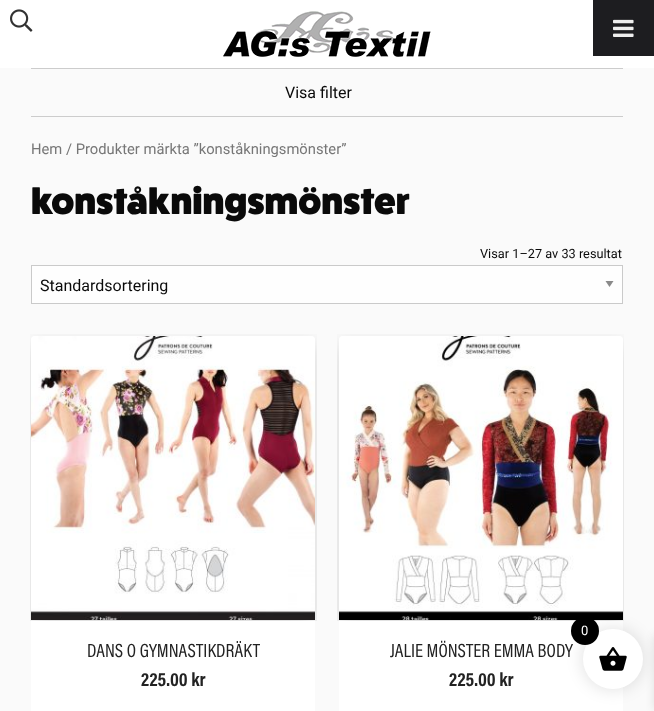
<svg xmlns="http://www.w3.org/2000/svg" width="654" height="711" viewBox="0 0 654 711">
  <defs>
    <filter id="blur1" x="-50%" y="-200%" width="200%" height="500%"><feGaussianBlur stdDeviation="7.5"/></filter>
    <filter id="blur2" x="-50%" y="-200%" width="200%" height="500%"><feGaussianBlur stdDeviation="5"/></filter>
  </defs>
  <rect width="100%" height="100%" fill="#ffffff"/>
  <image x="10" y="9" width="23" height="23" href="img1.png"/>
  <image x="223" y="11" width="208" height="46" href="img2.png"/>
  <rect x="0" y="68" width="654" height="643" fill="#fafafa"/>
  <rect x="593" y="0" width="61" height="56" fill="#1d1d20"/>
  <image x="613" y="19" width="21" height="18" href="img3.png"/>
  <rect x="31" y="68" width="592" height="1" fill="#cccccc"/>
  <rect x="31" y="116" width="592" height="1" fill="#cccccc"/>
  <text x="285" y="98" font-family="Roboto" font-size="16" fill="#0a0a0a">Visa filter</text>
  <text x="31" y="154" font-family="Roboto" font-size="14.75" fill="#767676">Hem / Produkter märkta ”konståkningsmönster”</text>
  <text x="31" y="214" font-family="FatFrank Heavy" font-size="36.75" font-weight="900" fill="#0a0a0a">konståkningsmönster</text>
  <text x="480" y="258" font-family="Roboto" font-size="12.75" fill="#0a0a0a">Visar 1–27 av 33 resultat</text>
  <rect x="32" y="266" width="590" height="37" fill="#fefefe"/>
  <path d="M605.5 281H613.5L609.5 287Z" fill="#8a8a8a"/>
  <rect x="31.5" y="265.5" width="591" height="38" fill="none" stroke="#cacaca"/>
  <text x="40" y="291" font-family="Roboto" font-size="16" fill="#0a0a0a">Standardsortering</text>
  <rect x="31" y="336" width="284" height="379" rx="4" fill="#ffffff"/>
  <image x="30" y="334" width="287" height="287" href="img4.png"/>
  <text x="87" y="657" font-family="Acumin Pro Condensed" font-size="19.25" fill="#222222">DANS O GYMNASTIKDRÄKT</text>
  <text x="141" y="686" font-family="Acumin Pro Condensed" font-size="19.25" font-weight="bold" fill="#222222">225.00 kr</text>
  <rect x="339" y="336" width="284" height="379" rx="4" fill="#ffffff"/>
  <image x="337" y="334" width="287" height="287" href="img5.png"/>
  <text x="390" y="657" font-family="Acumin Pro Condensed" font-size="19.25" fill="#222222">JALIE MÖNSTER EMMA BODY</text>
  <text x="449" y="686" font-family="Acumin Pro Condensed" font-size="19.25" font-weight="bold" fill="#222222">225.00 kr</text>
  <rect x="581" y="627" width="64" height="64" rx="32" fill="#000000" fill-opacity="0.1" filter="url(#blur1)"/>
  <rect x="654" y="635" width="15" height="75" fill="#000000" fill-opacity="0.1" filter="url(#blur2)"/>
  <circle cx="613" cy="659" r="30" fill="#ffffff"/>
  <circle cx="585" cy="631" r="14" fill="#000000"/>
  <text x="581" y="635" font-family="Roboto" font-size="13" fill="#ffffff">0</text>
  <image x="599" y="647" width="28" height="24" href="img6.png"/>
</svg>
